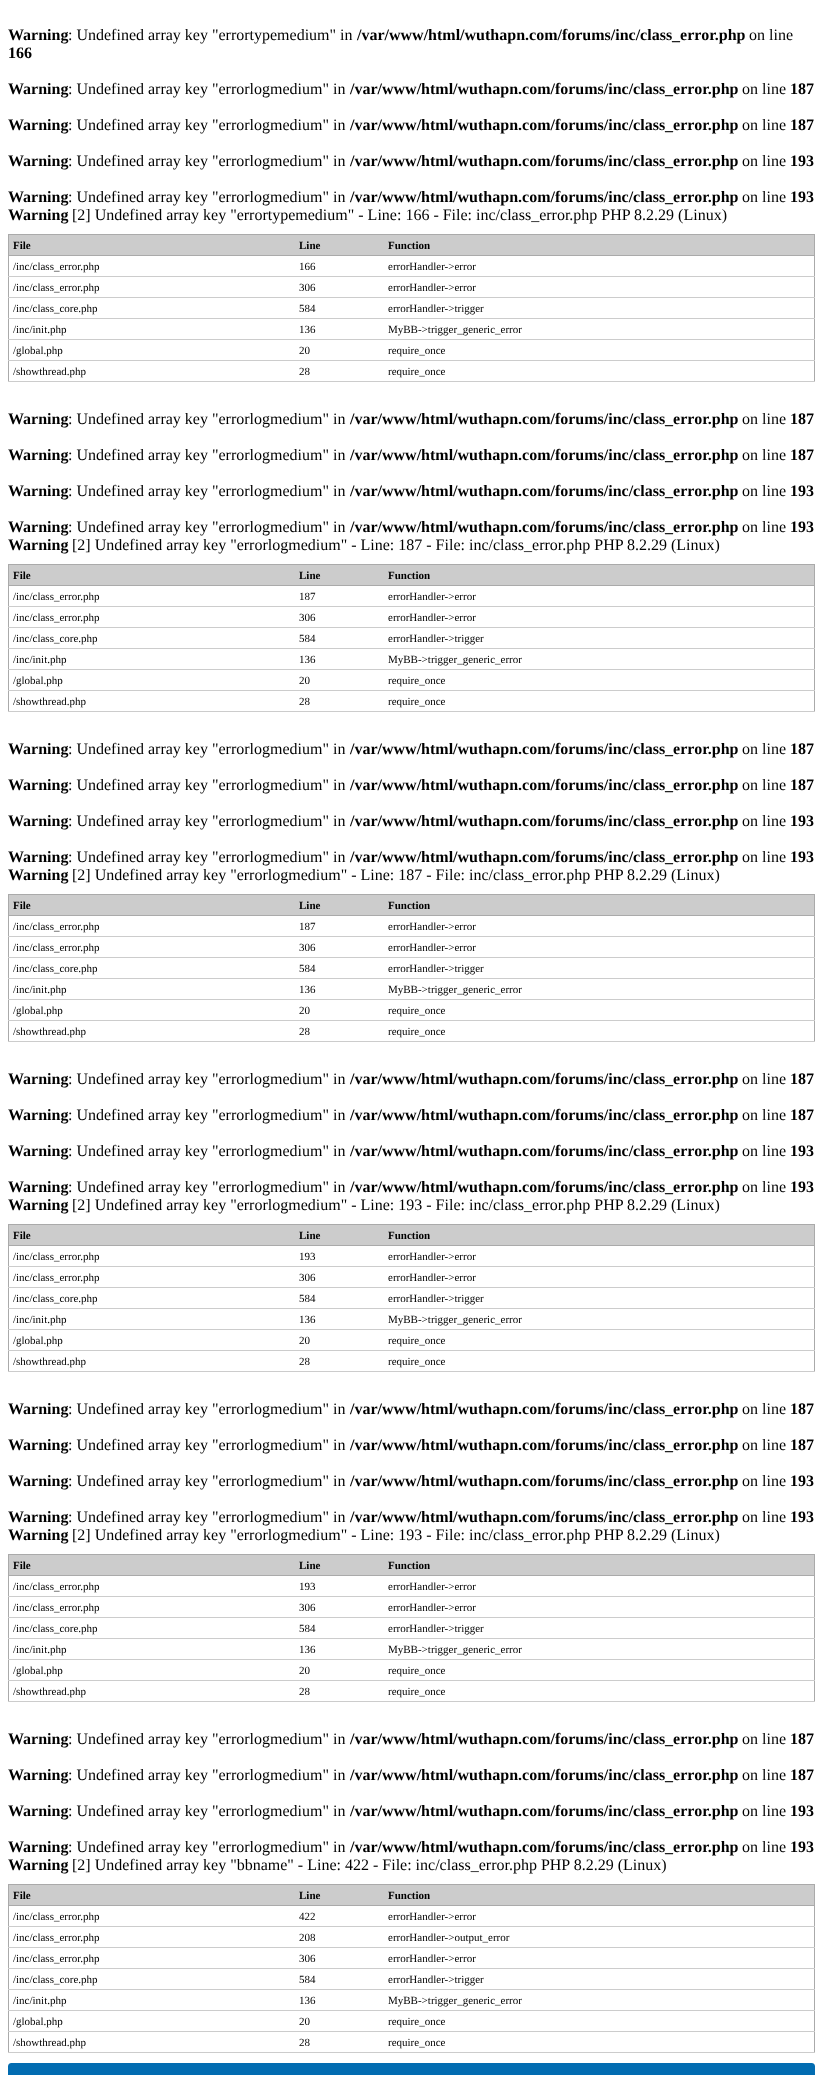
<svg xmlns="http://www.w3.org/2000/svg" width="823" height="2075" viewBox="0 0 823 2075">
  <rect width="100%" height="100%" fill="#ffffff"/>
  <text x="8" y="40" font-family="Liberation Serif" font-size="16" font-weight="bold" fill="#000000">Warning</text>
  <text x="68" y="40" font-family="Liberation Serif" font-size="16" fill="#000000">: Undefined array key "errortypemedium" in</text>
  <text x="357" y="40" font-family="Liberation Serif" font-size="16" font-weight="bold" fill="#000000">/var/www/html/wuthapn.com/forums/inc/class_error.php</text>
  <text x="749" y="40" font-family="Liberation Serif" font-size="16" fill="#000000">on line</text>
  <text x="8" y="58" font-family="Liberation Serif" font-size="16" font-weight="bold" fill="#000000">166</text>
  <text x="8" y="94" font-family="Liberation Serif" font-size="16" font-weight="bold" fill="#000000">Warning</text>
  <text x="68" y="94" font-family="Liberation Serif" font-size="16" fill="#000000">: Undefined array key "errorlogmedium" in</text>
  <text x="350" y="94" font-family="Liberation Serif" font-size="16" font-weight="bold" fill="#000000">/var/www/html/wuthapn.com/forums/inc/class_error.php</text>
  <text x="742" y="94" font-family="Liberation Serif" font-size="16" fill="#000000">on line</text>
  <text x="790" y="94" font-family="Liberation Serif" font-size="16" font-weight="bold" fill="#000000">187</text>
  <text x="8" y="130" font-family="Liberation Serif" font-size="16" font-weight="bold" fill="#000000">Warning</text>
  <text x="68" y="130" font-family="Liberation Serif" font-size="16" fill="#000000">: Undefined array key "errorlogmedium" in</text>
  <text x="350" y="130" font-family="Liberation Serif" font-size="16" font-weight="bold" fill="#000000">/var/www/html/wuthapn.com/forums/inc/class_error.php</text>
  <text x="742" y="130" font-family="Liberation Serif" font-size="16" fill="#000000">on line</text>
  <text x="790" y="130" font-family="Liberation Serif" font-size="16" font-weight="bold" fill="#000000">187</text>
  <text x="8" y="166" font-family="Liberation Serif" font-size="16" font-weight="bold" fill="#000000">Warning</text>
  <text x="68" y="166" font-family="Liberation Serif" font-size="16" fill="#000000">: Undefined array key "errorlogmedium" in</text>
  <text x="350" y="166" font-family="Liberation Serif" font-size="16" font-weight="bold" fill="#000000">/var/www/html/wuthapn.com/forums/inc/class_error.php</text>
  <text x="742" y="166" font-family="Liberation Serif" font-size="16" fill="#000000">on line</text>
  <text x="790" y="166" font-family="Liberation Serif" font-size="16" font-weight="bold" fill="#000000">193</text>
  <text x="8" y="202" font-family="Liberation Serif" font-size="16" font-weight="bold" fill="#000000">Warning</text>
  <text x="68" y="202" font-family="Liberation Serif" font-size="16" fill="#000000">: Undefined array key "errorlogmedium" in</text>
  <text x="350" y="202" font-family="Liberation Serif" font-size="16" font-weight="bold" fill="#000000">/var/www/html/wuthapn.com/forums/inc/class_error.php</text>
  <text x="742" y="202" font-family="Liberation Serif" font-size="16" fill="#000000">on line</text>
  <text x="790" y="202" font-family="Liberation Serif" font-size="16" font-weight="bold" fill="#000000">193</text>
  <text x="8" y="220" font-family="Liberation Serif" font-size="16" font-weight="bold" fill="#000000">Warning</text>
  <text x="72" y="220" font-family="Liberation Serif" font-size="16" fill="#000000">[2] Undefined array key "errortypemedium" - Line: 166 - File: inc/class_error.php PHP 8.2.29 (Linux)</text>
  <rect x="8" y="234" width="807" height="1" fill="#aaaaaa"/>
  <rect x="814" y="234" width="1" height="148" fill="#aaaaaa"/>
  <rect x="8" y="234" width="1" height="148" fill="#aaaaaa"/>
  <rect x="9" y="235" width="805" height="20" fill="#cccccc"/>
  <text x="13" y="249" font-family="Liberation Serif" font-size="11" font-weight="bold" fill="#000000">File</text>
  <text x="299" y="249" font-family="Liberation Serif" font-size="11" font-weight="bold" fill="#000000">Line</text>
  <rect x="8" y="255" width="807" height="1" fill="#aaaaaa"/>
  <text x="388" y="249" font-family="Liberation Serif" font-size="11" font-weight="bold" fill="#000000">Function</text>
  <text x="13" y="270" font-family="Liberation Serif" font-size="11" fill="#000000">/inc/class_error.php</text>
  <text x="299" y="270" font-family="Liberation Serif" font-size="11" fill="#000000">166</text>
  <rect x="8" y="276" width="807" height="1" fill="#cccccc"/>
  <text x="388" y="270" font-family="Liberation Serif" font-size="11" fill="#000000">errorHandler-&gt;error</text>
  <text x="13" y="291" font-family="Liberation Serif" font-size="11" fill="#000000">/inc/class_error.php</text>
  <text x="299" y="291" font-family="Liberation Serif" font-size="11" fill="#000000">306</text>
  <rect x="8" y="297" width="807" height="1" fill="#cccccc"/>
  <text x="388" y="291" font-family="Liberation Serif" font-size="11" fill="#000000">errorHandler-&gt;error</text>
  <text x="13" y="312" font-family="Liberation Serif" font-size="11" fill="#000000">/inc/class_core.php</text>
  <text x="299" y="312" font-family="Liberation Serif" font-size="11" fill="#000000">584</text>
  <rect x="8" y="318" width="807" height="1" fill="#cccccc"/>
  <text x="388" y="312" font-family="Liberation Serif" font-size="11" fill="#000000">errorHandler-&gt;trigger</text>
  <text x="13" y="333" font-family="Liberation Serif" font-size="11" fill="#000000">/inc/init.php</text>
  <text x="299" y="333" font-family="Liberation Serif" font-size="11" fill="#000000">136</text>
  <rect x="8" y="339" width="807" height="1" fill="#cccccc"/>
  <text x="388" y="333" font-family="Liberation Serif" font-size="11" fill="#000000">MyBB-&gt;trigger_generic_error</text>
  <text x="13" y="354" font-family="Liberation Serif" font-size="11" fill="#000000">/global.php</text>
  <text x="299" y="354" font-family="Liberation Serif" font-size="11" fill="#000000">20</text>
  <rect x="8" y="360" width="807" height="1" fill="#cccccc"/>
  <text x="388" y="354" font-family="Liberation Serif" font-size="11" fill="#000000">require_once</text>
  <text x="13" y="375" font-family="Liberation Serif" font-size="11" fill="#000000">/showthread.php</text>
  <text x="299" y="375" font-family="Liberation Serif" font-size="11" fill="#000000">28</text>
  <rect x="8" y="381" width="807" height="1" fill="#cccccc"/>
  <text x="388" y="375" font-family="Liberation Serif" font-size="11" fill="#000000">require_once</text>
  <text x="8" y="424" font-family="Liberation Serif" font-size="16" font-weight="bold" fill="#000000">Warning</text>
  <text x="68" y="424" font-family="Liberation Serif" font-size="16" fill="#000000">: Undefined array key "errorlogmedium" in</text>
  <text x="350" y="424" font-family="Liberation Serif" font-size="16" font-weight="bold" fill="#000000">/var/www/html/wuthapn.com/forums/inc/class_error.php</text>
  <text x="742" y="424" font-family="Liberation Serif" font-size="16" fill="#000000">on line</text>
  <text x="790" y="424" font-family="Liberation Serif" font-size="16" font-weight="bold" fill="#000000">187</text>
  <text x="8" y="460" font-family="Liberation Serif" font-size="16" font-weight="bold" fill="#000000">Warning</text>
  <text x="68" y="460" font-family="Liberation Serif" font-size="16" fill="#000000">: Undefined array key "errorlogmedium" in</text>
  <text x="350" y="460" font-family="Liberation Serif" font-size="16" font-weight="bold" fill="#000000">/var/www/html/wuthapn.com/forums/inc/class_error.php</text>
  <text x="742" y="460" font-family="Liberation Serif" font-size="16" fill="#000000">on line</text>
  <text x="790" y="460" font-family="Liberation Serif" font-size="16" font-weight="bold" fill="#000000">187</text>
  <text x="8" y="496" font-family="Liberation Serif" font-size="16" font-weight="bold" fill="#000000">Warning</text>
  <text x="68" y="496" font-family="Liberation Serif" font-size="16" fill="#000000">: Undefined array key "errorlogmedium" in</text>
  <text x="350" y="496" font-family="Liberation Serif" font-size="16" font-weight="bold" fill="#000000">/var/www/html/wuthapn.com/forums/inc/class_error.php</text>
  <text x="742" y="496" font-family="Liberation Serif" font-size="16" fill="#000000">on line</text>
  <text x="790" y="496" font-family="Liberation Serif" font-size="16" font-weight="bold" fill="#000000">193</text>
  <text x="8" y="532" font-family="Liberation Serif" font-size="16" font-weight="bold" fill="#000000">Warning</text>
  <text x="68" y="532" font-family="Liberation Serif" font-size="16" fill="#000000">: Undefined array key "errorlogmedium" in</text>
  <text x="350" y="532" font-family="Liberation Serif" font-size="16" font-weight="bold" fill="#000000">/var/www/html/wuthapn.com/forums/inc/class_error.php</text>
  <text x="742" y="532" font-family="Liberation Serif" font-size="16" fill="#000000">on line</text>
  <text x="790" y="532" font-family="Liberation Serif" font-size="16" font-weight="bold" fill="#000000">193</text>
  <text x="8" y="550" font-family="Liberation Serif" font-size="16" font-weight="bold" fill="#000000">Warning</text>
  <text x="72" y="550" font-family="Liberation Serif" font-size="16" fill="#000000">[2] Undefined array key "errorlogmedium" - Line: 187 - File: inc/class_error.php PHP 8.2.29 (Linux)</text>
  <rect x="8" y="564" width="807" height="1" fill="#aaaaaa"/>
  <rect x="814" y="564" width="1" height="148" fill="#aaaaaa"/>
  <rect x="8" y="564" width="1" height="148" fill="#aaaaaa"/>
  <rect x="9" y="565" width="805" height="20" fill="#cccccc"/>
  <text x="13" y="579" font-family="Liberation Serif" font-size="11" font-weight="bold" fill="#000000">File</text>
  <text x="299" y="579" font-family="Liberation Serif" font-size="11" font-weight="bold" fill="#000000">Line</text>
  <rect x="8" y="585" width="807" height="1" fill="#aaaaaa"/>
  <text x="388" y="579" font-family="Liberation Serif" font-size="11" font-weight="bold" fill="#000000">Function</text>
  <text x="13" y="600" font-family="Liberation Serif" font-size="11" fill="#000000">/inc/class_error.php</text>
  <text x="299" y="600" font-family="Liberation Serif" font-size="11" fill="#000000">187</text>
  <rect x="8" y="606" width="807" height="1" fill="#cccccc"/>
  <text x="388" y="600" font-family="Liberation Serif" font-size="11" fill="#000000">errorHandler-&gt;error</text>
  <text x="13" y="621" font-family="Liberation Serif" font-size="11" fill="#000000">/inc/class_error.php</text>
  <text x="299" y="621" font-family="Liberation Serif" font-size="11" fill="#000000">306</text>
  <rect x="8" y="627" width="807" height="1" fill="#cccccc"/>
  <text x="388" y="621" font-family="Liberation Serif" font-size="11" fill="#000000">errorHandler-&gt;error</text>
  <text x="13" y="642" font-family="Liberation Serif" font-size="11" fill="#000000">/inc/class_core.php</text>
  <text x="299" y="642" font-family="Liberation Serif" font-size="11" fill="#000000">584</text>
  <rect x="8" y="648" width="807" height="1" fill="#cccccc"/>
  <text x="388" y="642" font-family="Liberation Serif" font-size="11" fill="#000000">errorHandler-&gt;trigger</text>
  <text x="13" y="663" font-family="Liberation Serif" font-size="11" fill="#000000">/inc/init.php</text>
  <text x="299" y="663" font-family="Liberation Serif" font-size="11" fill="#000000">136</text>
  <rect x="8" y="669" width="807" height="1" fill="#cccccc"/>
  <text x="388" y="663" font-family="Liberation Serif" font-size="11" fill="#000000">MyBB-&gt;trigger_generic_error</text>
  <text x="13" y="684" font-family="Liberation Serif" font-size="11" fill="#000000">/global.php</text>
  <text x="299" y="684" font-family="Liberation Serif" font-size="11" fill="#000000">20</text>
  <rect x="8" y="690" width="807" height="1" fill="#cccccc"/>
  <text x="388" y="684" font-family="Liberation Serif" font-size="11" fill="#000000">require_once</text>
  <text x="13" y="705" font-family="Liberation Serif" font-size="11" fill="#000000">/showthread.php</text>
  <text x="299" y="705" font-family="Liberation Serif" font-size="11" fill="#000000">28</text>
  <rect x="8" y="711" width="807" height="1" fill="#cccccc"/>
  <text x="388" y="705" font-family="Liberation Serif" font-size="11" fill="#000000">require_once</text>
  <text x="8" y="754" font-family="Liberation Serif" font-size="16" font-weight="bold" fill="#000000">Warning</text>
  <text x="68" y="754" font-family="Liberation Serif" font-size="16" fill="#000000">: Undefined array key "errorlogmedium" in</text>
  <text x="350" y="754" font-family="Liberation Serif" font-size="16" font-weight="bold" fill="#000000">/var/www/html/wuthapn.com/forums/inc/class_error.php</text>
  <text x="742" y="754" font-family="Liberation Serif" font-size="16" fill="#000000">on line</text>
  <text x="790" y="754" font-family="Liberation Serif" font-size="16" font-weight="bold" fill="#000000">187</text>
  <text x="8" y="790" font-family="Liberation Serif" font-size="16" font-weight="bold" fill="#000000">Warning</text>
  <text x="68" y="790" font-family="Liberation Serif" font-size="16" fill="#000000">: Undefined array key "errorlogmedium" in</text>
  <text x="350" y="790" font-family="Liberation Serif" font-size="16" font-weight="bold" fill="#000000">/var/www/html/wuthapn.com/forums/inc/class_error.php</text>
  <text x="742" y="790" font-family="Liberation Serif" font-size="16" fill="#000000">on line</text>
  <text x="790" y="790" font-family="Liberation Serif" font-size="16" font-weight="bold" fill="#000000">187</text>
  <text x="8" y="826" font-family="Liberation Serif" font-size="16" font-weight="bold" fill="#000000">Warning</text>
  <text x="68" y="826" font-family="Liberation Serif" font-size="16" fill="#000000">: Undefined array key "errorlogmedium" in</text>
  <text x="350" y="826" font-family="Liberation Serif" font-size="16" font-weight="bold" fill="#000000">/var/www/html/wuthapn.com/forums/inc/class_error.php</text>
  <text x="742" y="826" font-family="Liberation Serif" font-size="16" fill="#000000">on line</text>
  <text x="790" y="826" font-family="Liberation Serif" font-size="16" font-weight="bold" fill="#000000">193</text>
  <text x="8" y="862" font-family="Liberation Serif" font-size="16" font-weight="bold" fill="#000000">Warning</text>
  <text x="68" y="862" font-family="Liberation Serif" font-size="16" fill="#000000">: Undefined array key "errorlogmedium" in</text>
  <text x="350" y="862" font-family="Liberation Serif" font-size="16" font-weight="bold" fill="#000000">/var/www/html/wuthapn.com/forums/inc/class_error.php</text>
  <text x="742" y="862" font-family="Liberation Serif" font-size="16" fill="#000000">on line</text>
  <text x="790" y="862" font-family="Liberation Serif" font-size="16" font-weight="bold" fill="#000000">193</text>
  <text x="8" y="880" font-family="Liberation Serif" font-size="16" font-weight="bold" fill="#000000">Warning</text>
  <text x="72" y="880" font-family="Liberation Serif" font-size="16" fill="#000000">[2] Undefined array key "errorlogmedium" - Line: 187 - File: inc/class_error.php PHP 8.2.29 (Linux)</text>
  <rect x="8" y="894" width="807" height="1" fill="#aaaaaa"/>
  <rect x="814" y="894" width="1" height="148" fill="#aaaaaa"/>
  <rect x="8" y="894" width="1" height="148" fill="#aaaaaa"/>
  <rect x="9" y="895" width="805" height="20" fill="#cccccc"/>
  <text x="13" y="909" font-family="Liberation Serif" font-size="11" font-weight="bold" fill="#000000">File</text>
  <text x="299" y="909" font-family="Liberation Serif" font-size="11" font-weight="bold" fill="#000000">Line</text>
  <rect x="8" y="915" width="807" height="1" fill="#aaaaaa"/>
  <text x="388" y="909" font-family="Liberation Serif" font-size="11" font-weight="bold" fill="#000000">Function</text>
  <text x="13" y="930" font-family="Liberation Serif" font-size="11" fill="#000000">/inc/class_error.php</text>
  <text x="299" y="930" font-family="Liberation Serif" font-size="11" fill="#000000">187</text>
  <rect x="8" y="936" width="807" height="1" fill="#cccccc"/>
  <text x="388" y="930" font-family="Liberation Serif" font-size="11" fill="#000000">errorHandler-&gt;error</text>
  <text x="13" y="951" font-family="Liberation Serif" font-size="11" fill="#000000">/inc/class_error.php</text>
  <text x="299" y="951" font-family="Liberation Serif" font-size="11" fill="#000000">306</text>
  <rect x="8" y="957" width="807" height="1" fill="#cccccc"/>
  <text x="388" y="951" font-family="Liberation Serif" font-size="11" fill="#000000">errorHandler-&gt;error</text>
  <text x="13" y="972" font-family="Liberation Serif" font-size="11" fill="#000000">/inc/class_core.php</text>
  <text x="299" y="972" font-family="Liberation Serif" font-size="11" fill="#000000">584</text>
  <rect x="8" y="978" width="807" height="1" fill="#cccccc"/>
  <text x="388" y="972" font-family="Liberation Serif" font-size="11" fill="#000000">errorHandler-&gt;trigger</text>
  <text x="13" y="993" font-family="Liberation Serif" font-size="11" fill="#000000">/inc/init.php</text>
  <text x="299" y="993" font-family="Liberation Serif" font-size="11" fill="#000000">136</text>
  <rect x="8" y="999" width="807" height="1" fill="#cccccc"/>
  <text x="388" y="993" font-family="Liberation Serif" font-size="11" fill="#000000">MyBB-&gt;trigger_generic_error</text>
  <text x="13" y="1014" font-family="Liberation Serif" font-size="11" fill="#000000">/global.php</text>
  <text x="299" y="1014" font-family="Liberation Serif" font-size="11" fill="#000000">20</text>
  <rect x="8" y="1020" width="807" height="1" fill="#cccccc"/>
  <text x="388" y="1014" font-family="Liberation Serif" font-size="11" fill="#000000">require_once</text>
  <text x="13" y="1035" font-family="Liberation Serif" font-size="11" fill="#000000">/showthread.php</text>
  <text x="299" y="1035" font-family="Liberation Serif" font-size="11" fill="#000000">28</text>
  <rect x="8" y="1041" width="807" height="1" fill="#cccccc"/>
  <text x="388" y="1035" font-family="Liberation Serif" font-size="11" fill="#000000">require_once</text>
  <text x="8" y="1084" font-family="Liberation Serif" font-size="16" font-weight="bold" fill="#000000">Warning</text>
  <text x="68" y="1084" font-family="Liberation Serif" font-size="16" fill="#000000">: Undefined array key "errorlogmedium" in</text>
  <text x="350" y="1084" font-family="Liberation Serif" font-size="16" font-weight="bold" fill="#000000">/var/www/html/wuthapn.com/forums/inc/class_error.php</text>
  <text x="742" y="1084" font-family="Liberation Serif" font-size="16" fill="#000000">on line</text>
  <text x="790" y="1084" font-family="Liberation Serif" font-size="16" font-weight="bold" fill="#000000">187</text>
  <text x="8" y="1120" font-family="Liberation Serif" font-size="16" font-weight="bold" fill="#000000">Warning</text>
  <text x="68" y="1120" font-family="Liberation Serif" font-size="16" fill="#000000">: Undefined array key "errorlogmedium" in</text>
  <text x="350" y="1120" font-family="Liberation Serif" font-size="16" font-weight="bold" fill="#000000">/var/www/html/wuthapn.com/forums/inc/class_error.php</text>
  <text x="742" y="1120" font-family="Liberation Serif" font-size="16" fill="#000000">on line</text>
  <text x="790" y="1120" font-family="Liberation Serif" font-size="16" font-weight="bold" fill="#000000">187</text>
  <text x="8" y="1156" font-family="Liberation Serif" font-size="16" font-weight="bold" fill="#000000">Warning</text>
  <text x="68" y="1156" font-family="Liberation Serif" font-size="16" fill="#000000">: Undefined array key "errorlogmedium" in</text>
  <text x="350" y="1156" font-family="Liberation Serif" font-size="16" font-weight="bold" fill="#000000">/var/www/html/wuthapn.com/forums/inc/class_error.php</text>
  <text x="742" y="1156" font-family="Liberation Serif" font-size="16" fill="#000000">on line</text>
  <text x="790" y="1156" font-family="Liberation Serif" font-size="16" font-weight="bold" fill="#000000">193</text>
  <text x="8" y="1192" font-family="Liberation Serif" font-size="16" font-weight="bold" fill="#000000">Warning</text>
  <text x="68" y="1192" font-family="Liberation Serif" font-size="16" fill="#000000">: Undefined array key "errorlogmedium" in</text>
  <text x="350" y="1192" font-family="Liberation Serif" font-size="16" font-weight="bold" fill="#000000">/var/www/html/wuthapn.com/forums/inc/class_error.php</text>
  <text x="742" y="1192" font-family="Liberation Serif" font-size="16" fill="#000000">on line</text>
  <text x="790" y="1192" font-family="Liberation Serif" font-size="16" font-weight="bold" fill="#000000">193</text>
  <text x="8" y="1210" font-family="Liberation Serif" font-size="16" font-weight="bold" fill="#000000">Warning</text>
  <text x="72" y="1210" font-family="Liberation Serif" font-size="16" fill="#000000">[2] Undefined array key "errorlogmedium" - Line: 193 - File: inc/class_error.php PHP 8.2.29 (Linux)</text>
  <rect x="8" y="1224" width="807" height="1" fill="#aaaaaa"/>
  <rect x="814" y="1224" width="1" height="148" fill="#aaaaaa"/>
  <rect x="8" y="1224" width="1" height="148" fill="#aaaaaa"/>
  <rect x="9" y="1225" width="805" height="20" fill="#cccccc"/>
  <text x="13" y="1239" font-family="Liberation Serif" font-size="11" font-weight="bold" fill="#000000">File</text>
  <text x="299" y="1239" font-family="Liberation Serif" font-size="11" font-weight="bold" fill="#000000">Line</text>
  <rect x="8" y="1245" width="807" height="1" fill="#aaaaaa"/>
  <text x="388" y="1239" font-family="Liberation Serif" font-size="11" font-weight="bold" fill="#000000">Function</text>
  <text x="13" y="1260" font-family="Liberation Serif" font-size="11" fill="#000000">/inc/class_error.php</text>
  <text x="299" y="1260" font-family="Liberation Serif" font-size="11" fill="#000000">193</text>
  <rect x="8" y="1266" width="807" height="1" fill="#cccccc"/>
  <text x="388" y="1260" font-family="Liberation Serif" font-size="11" fill="#000000">errorHandler-&gt;error</text>
  <text x="13" y="1281" font-family="Liberation Serif" font-size="11" fill="#000000">/inc/class_error.php</text>
  <text x="299" y="1281" font-family="Liberation Serif" font-size="11" fill="#000000">306</text>
  <rect x="8" y="1287" width="807" height="1" fill="#cccccc"/>
  <text x="388" y="1281" font-family="Liberation Serif" font-size="11" fill="#000000">errorHandler-&gt;error</text>
  <text x="13" y="1302" font-family="Liberation Serif" font-size="11" fill="#000000">/inc/class_core.php</text>
  <text x="299" y="1302" font-family="Liberation Serif" font-size="11" fill="#000000">584</text>
  <rect x="8" y="1308" width="807" height="1" fill="#cccccc"/>
  <text x="388" y="1302" font-family="Liberation Serif" font-size="11" fill="#000000">errorHandler-&gt;trigger</text>
  <text x="13" y="1323" font-family="Liberation Serif" font-size="11" fill="#000000">/inc/init.php</text>
  <text x="299" y="1323" font-family="Liberation Serif" font-size="11" fill="#000000">136</text>
  <rect x="8" y="1329" width="807" height="1" fill="#cccccc"/>
  <text x="388" y="1323" font-family="Liberation Serif" font-size="11" fill="#000000">MyBB-&gt;trigger_generic_error</text>
  <text x="13" y="1344" font-family="Liberation Serif" font-size="11" fill="#000000">/global.php</text>
  <text x="299" y="1344" font-family="Liberation Serif" font-size="11" fill="#000000">20</text>
  <rect x="8" y="1350" width="807" height="1" fill="#cccccc"/>
  <text x="388" y="1344" font-family="Liberation Serif" font-size="11" fill="#000000">require_once</text>
  <text x="13" y="1365" font-family="Liberation Serif" font-size="11" fill="#000000">/showthread.php</text>
  <text x="299" y="1365" font-family="Liberation Serif" font-size="11" fill="#000000">28</text>
  <rect x="8" y="1371" width="807" height="1" fill="#cccccc"/>
  <text x="388" y="1365" font-family="Liberation Serif" font-size="11" fill="#000000">require_once</text>
  <text x="8" y="1414" font-family="Liberation Serif" font-size="16" font-weight="bold" fill="#000000">Warning</text>
  <text x="68" y="1414" font-family="Liberation Serif" font-size="16" fill="#000000">: Undefined array key "errorlogmedium" in</text>
  <text x="350" y="1414" font-family="Liberation Serif" font-size="16" font-weight="bold" fill="#000000">/var/www/html/wuthapn.com/forums/inc/class_error.php</text>
  <text x="742" y="1414" font-family="Liberation Serif" font-size="16" fill="#000000">on line</text>
  <text x="790" y="1414" font-family="Liberation Serif" font-size="16" font-weight="bold" fill="#000000">187</text>
  <text x="8" y="1450" font-family="Liberation Serif" font-size="16" font-weight="bold" fill="#000000">Warning</text>
  <text x="68" y="1450" font-family="Liberation Serif" font-size="16" fill="#000000">: Undefined array key "errorlogmedium" in</text>
  <text x="350" y="1450" font-family="Liberation Serif" font-size="16" font-weight="bold" fill="#000000">/var/www/html/wuthapn.com/forums/inc/class_error.php</text>
  <text x="742" y="1450" font-family="Liberation Serif" font-size="16" fill="#000000">on line</text>
  <text x="790" y="1450" font-family="Liberation Serif" font-size="16" font-weight="bold" fill="#000000">187</text>
  <text x="8" y="1486" font-family="Liberation Serif" font-size="16" font-weight="bold" fill="#000000">Warning</text>
  <text x="68" y="1486" font-family="Liberation Serif" font-size="16" fill="#000000">: Undefined array key "errorlogmedium" in</text>
  <text x="350" y="1486" font-family="Liberation Serif" font-size="16" font-weight="bold" fill="#000000">/var/www/html/wuthapn.com/forums/inc/class_error.php</text>
  <text x="742" y="1486" font-family="Liberation Serif" font-size="16" fill="#000000">on line</text>
  <text x="790" y="1486" font-family="Liberation Serif" font-size="16" font-weight="bold" fill="#000000">193</text>
  <text x="8" y="1522" font-family="Liberation Serif" font-size="16" font-weight="bold" fill="#000000">Warning</text>
  <text x="68" y="1522" font-family="Liberation Serif" font-size="16" fill="#000000">: Undefined array key "errorlogmedium" in</text>
  <text x="350" y="1522" font-family="Liberation Serif" font-size="16" font-weight="bold" fill="#000000">/var/www/html/wuthapn.com/forums/inc/class_error.php</text>
  <text x="742" y="1522" font-family="Liberation Serif" font-size="16" fill="#000000">on line</text>
  <text x="790" y="1522" font-family="Liberation Serif" font-size="16" font-weight="bold" fill="#000000">193</text>
  <text x="8" y="1540" font-family="Liberation Serif" font-size="16" font-weight="bold" fill="#000000">Warning</text>
  <text x="72" y="1540" font-family="Liberation Serif" font-size="16" fill="#000000">[2] Undefined array key "errorlogmedium" - Line: 193 - File: inc/class_error.php PHP 8.2.29 (Linux)</text>
  <rect x="8" y="1554" width="807" height="1" fill="#aaaaaa"/>
  <rect x="814" y="1554" width="1" height="148" fill="#aaaaaa"/>
  <rect x="8" y="1554" width="1" height="148" fill="#aaaaaa"/>
  <rect x="9" y="1555" width="805" height="20" fill="#cccccc"/>
  <text x="13" y="1569" font-family="Liberation Serif" font-size="11" font-weight="bold" fill="#000000">File</text>
  <text x="299" y="1569" font-family="Liberation Serif" font-size="11" font-weight="bold" fill="#000000">Line</text>
  <rect x="8" y="1575" width="807" height="1" fill="#aaaaaa"/>
  <text x="388" y="1569" font-family="Liberation Serif" font-size="11" font-weight="bold" fill="#000000">Function</text>
  <text x="13" y="1590" font-family="Liberation Serif" font-size="11" fill="#000000">/inc/class_error.php</text>
  <text x="299" y="1590" font-family="Liberation Serif" font-size="11" fill="#000000">193</text>
  <rect x="8" y="1596" width="807" height="1" fill="#cccccc"/>
  <text x="388" y="1590" font-family="Liberation Serif" font-size="11" fill="#000000">errorHandler-&gt;error</text>
  <text x="13" y="1611" font-family="Liberation Serif" font-size="11" fill="#000000">/inc/class_error.php</text>
  <text x="299" y="1611" font-family="Liberation Serif" font-size="11" fill="#000000">306</text>
  <rect x="8" y="1617" width="807" height="1" fill="#cccccc"/>
  <text x="388" y="1611" font-family="Liberation Serif" font-size="11" fill="#000000">errorHandler-&gt;error</text>
  <text x="13" y="1632" font-family="Liberation Serif" font-size="11" fill="#000000">/inc/class_core.php</text>
  <text x="299" y="1632" font-family="Liberation Serif" font-size="11" fill="#000000">584</text>
  <rect x="8" y="1638" width="807" height="1" fill="#cccccc"/>
  <text x="388" y="1632" font-family="Liberation Serif" font-size="11" fill="#000000">errorHandler-&gt;trigger</text>
  <text x="13" y="1653" font-family="Liberation Serif" font-size="11" fill="#000000">/inc/init.php</text>
  <text x="299" y="1653" font-family="Liberation Serif" font-size="11" fill="#000000">136</text>
  <rect x="8" y="1659" width="807" height="1" fill="#cccccc"/>
  <text x="388" y="1653" font-family="Liberation Serif" font-size="11" fill="#000000">MyBB-&gt;trigger_generic_error</text>
  <text x="13" y="1674" font-family="Liberation Serif" font-size="11" fill="#000000">/global.php</text>
  <text x="299" y="1674" font-family="Liberation Serif" font-size="11" fill="#000000">20</text>
  <rect x="8" y="1680" width="807" height="1" fill="#cccccc"/>
  <text x="388" y="1674" font-family="Liberation Serif" font-size="11" fill="#000000">require_once</text>
  <text x="13" y="1695" font-family="Liberation Serif" font-size="11" fill="#000000">/showthread.php</text>
  <text x="299" y="1695" font-family="Liberation Serif" font-size="11" fill="#000000">28</text>
  <rect x="8" y="1701" width="807" height="1" fill="#cccccc"/>
  <text x="388" y="1695" font-family="Liberation Serif" font-size="11" fill="#000000">require_once</text>
  <text x="8" y="1744" font-family="Liberation Serif" font-size="16" font-weight="bold" fill="#000000">Warning</text>
  <text x="68" y="1744" font-family="Liberation Serif" font-size="16" fill="#000000">: Undefined array key "errorlogmedium" in</text>
  <text x="350" y="1744" font-family="Liberation Serif" font-size="16" font-weight="bold" fill="#000000">/var/www/html/wuthapn.com/forums/inc/class_error.php</text>
  <text x="742" y="1744" font-family="Liberation Serif" font-size="16" fill="#000000">on line</text>
  <text x="790" y="1744" font-family="Liberation Serif" font-size="16" font-weight="bold" fill="#000000">187</text>
  <text x="8" y="1780" font-family="Liberation Serif" font-size="16" font-weight="bold" fill="#000000">Warning</text>
  <text x="68" y="1780" font-family="Liberation Serif" font-size="16" fill="#000000">: Undefined array key "errorlogmedium" in</text>
  <text x="350" y="1780" font-family="Liberation Serif" font-size="16" font-weight="bold" fill="#000000">/var/www/html/wuthapn.com/forums/inc/class_error.php</text>
  <text x="742" y="1780" font-family="Liberation Serif" font-size="16" fill="#000000">on line</text>
  <text x="790" y="1780" font-family="Liberation Serif" font-size="16" font-weight="bold" fill="#000000">187</text>
  <text x="8" y="1816" font-family="Liberation Serif" font-size="16" font-weight="bold" fill="#000000">Warning</text>
  <text x="68" y="1816" font-family="Liberation Serif" font-size="16" fill="#000000">: Undefined array key "errorlogmedium" in</text>
  <text x="350" y="1816" font-family="Liberation Serif" font-size="16" font-weight="bold" fill="#000000">/var/www/html/wuthapn.com/forums/inc/class_error.php</text>
  <text x="742" y="1816" font-family="Liberation Serif" font-size="16" fill="#000000">on line</text>
  <text x="790" y="1816" font-family="Liberation Serif" font-size="16" font-weight="bold" fill="#000000">193</text>
  <text x="8" y="1852" font-family="Liberation Serif" font-size="16" font-weight="bold" fill="#000000">Warning</text>
  <text x="68" y="1852" font-family="Liberation Serif" font-size="16" fill="#000000">: Undefined array key "errorlogmedium" in</text>
  <text x="350" y="1852" font-family="Liberation Serif" font-size="16" font-weight="bold" fill="#000000">/var/www/html/wuthapn.com/forums/inc/class_error.php</text>
  <text x="742" y="1852" font-family="Liberation Serif" font-size="16" fill="#000000">on line</text>
  <text x="790" y="1852" font-family="Liberation Serif" font-size="16" font-weight="bold" fill="#000000">193</text>
  <text x="8" y="1870" font-family="Liberation Serif" font-size="16" font-weight="bold" fill="#000000">Warning</text>
  <text x="72" y="1870" font-family="Liberation Serif" font-size="16" fill="#000000">[2] Undefined array key "bbname" - Line: 422 - File: inc/class_error.php PHP 8.2.29 (Linux)</text>
  <rect x="8" y="1884" width="807" height="1" fill="#aaaaaa"/>
  <rect x="814" y="1884" width="1" height="169" fill="#aaaaaa"/>
  <rect x="8" y="1884" width="1" height="169" fill="#aaaaaa"/>
  <rect x="9" y="1885" width="805" height="20" fill="#cccccc"/>
  <text x="13" y="1899" font-family="Liberation Serif" font-size="11" font-weight="bold" fill="#000000">File</text>
  <text x="299" y="1899" font-family="Liberation Serif" font-size="11" font-weight="bold" fill="#000000">Line</text>
  <rect x="8" y="1905" width="807" height="1" fill="#aaaaaa"/>
  <text x="388" y="1899" font-family="Liberation Serif" font-size="11" font-weight="bold" fill="#000000">Function</text>
  <text x="13" y="1920" font-family="Liberation Serif" font-size="11" fill="#000000">/inc/class_error.php</text>
  <text x="299" y="1920" font-family="Liberation Serif" font-size="11" fill="#000000">422</text>
  <rect x="8" y="1926" width="807" height="1" fill="#cccccc"/>
  <text x="388" y="1920" font-family="Liberation Serif" font-size="11" fill="#000000">errorHandler-&gt;error</text>
  <text x="13" y="1941" font-family="Liberation Serif" font-size="11" fill="#000000">/inc/class_error.php</text>
  <text x="299" y="1941" font-family="Liberation Serif" font-size="11" fill="#000000">208</text>
  <rect x="8" y="1947" width="807" height="1" fill="#cccccc"/>
  <text x="388" y="1941" font-family="Liberation Serif" font-size="11" fill="#000000">errorHandler-&gt;output_error</text>
  <text x="13" y="1962" font-family="Liberation Serif" font-size="11" fill="#000000">/inc/class_error.php</text>
  <text x="299" y="1962" font-family="Liberation Serif" font-size="11" fill="#000000">306</text>
  <rect x="8" y="1968" width="807" height="1" fill="#cccccc"/>
  <text x="388" y="1962" font-family="Liberation Serif" font-size="11" fill="#000000">errorHandler-&gt;error</text>
  <text x="13" y="1983" font-family="Liberation Serif" font-size="11" fill="#000000">/inc/class_core.php</text>
  <text x="299" y="1983" font-family="Liberation Serif" font-size="11" fill="#000000">584</text>
  <rect x="8" y="1989" width="807" height="1" fill="#cccccc"/>
  <text x="388" y="1983" font-family="Liberation Serif" font-size="11" fill="#000000">errorHandler-&gt;trigger</text>
  <text x="13" y="2004" font-family="Liberation Serif" font-size="11" fill="#000000">/inc/init.php</text>
  <text x="299" y="2004" font-family="Liberation Serif" font-size="11" fill="#000000">136</text>
  <rect x="8" y="2010" width="807" height="1" fill="#cccccc"/>
  <text x="388" y="2004" font-family="Liberation Serif" font-size="11" fill="#000000">MyBB-&gt;trigger_generic_error</text>
  <text x="13" y="2025" font-family="Liberation Serif" font-size="11" fill="#000000">/global.php</text>
  <text x="299" y="2025" font-family="Liberation Serif" font-size="11" fill="#000000">20</text>
  <rect x="8" y="2031" width="807" height="1" fill="#cccccc"/>
  <text x="388" y="2025" font-family="Liberation Serif" font-size="11" fill="#000000">require_once</text>
  <text x="13" y="2046" font-family="Liberation Serif" font-size="11" fill="#000000">/showthread.php</text>
  <text x="299" y="2046" font-family="Liberation Serif" font-size="11" fill="#000000">28</text>
  <rect x="8" y="2052" width="807" height="1" fill="#cccccc"/>
  <text x="388" y="2046" font-family="Liberation Serif" font-size="11" fill="#000000">require_once</text>
  <rect x="8.5" y="2063.5" width="806" height="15" rx="2.5" fill="none" stroke="#026cb1"/>
  <rect x="9" y="2064" width="805" height="11" fill="#026cb1"/>
</svg>
